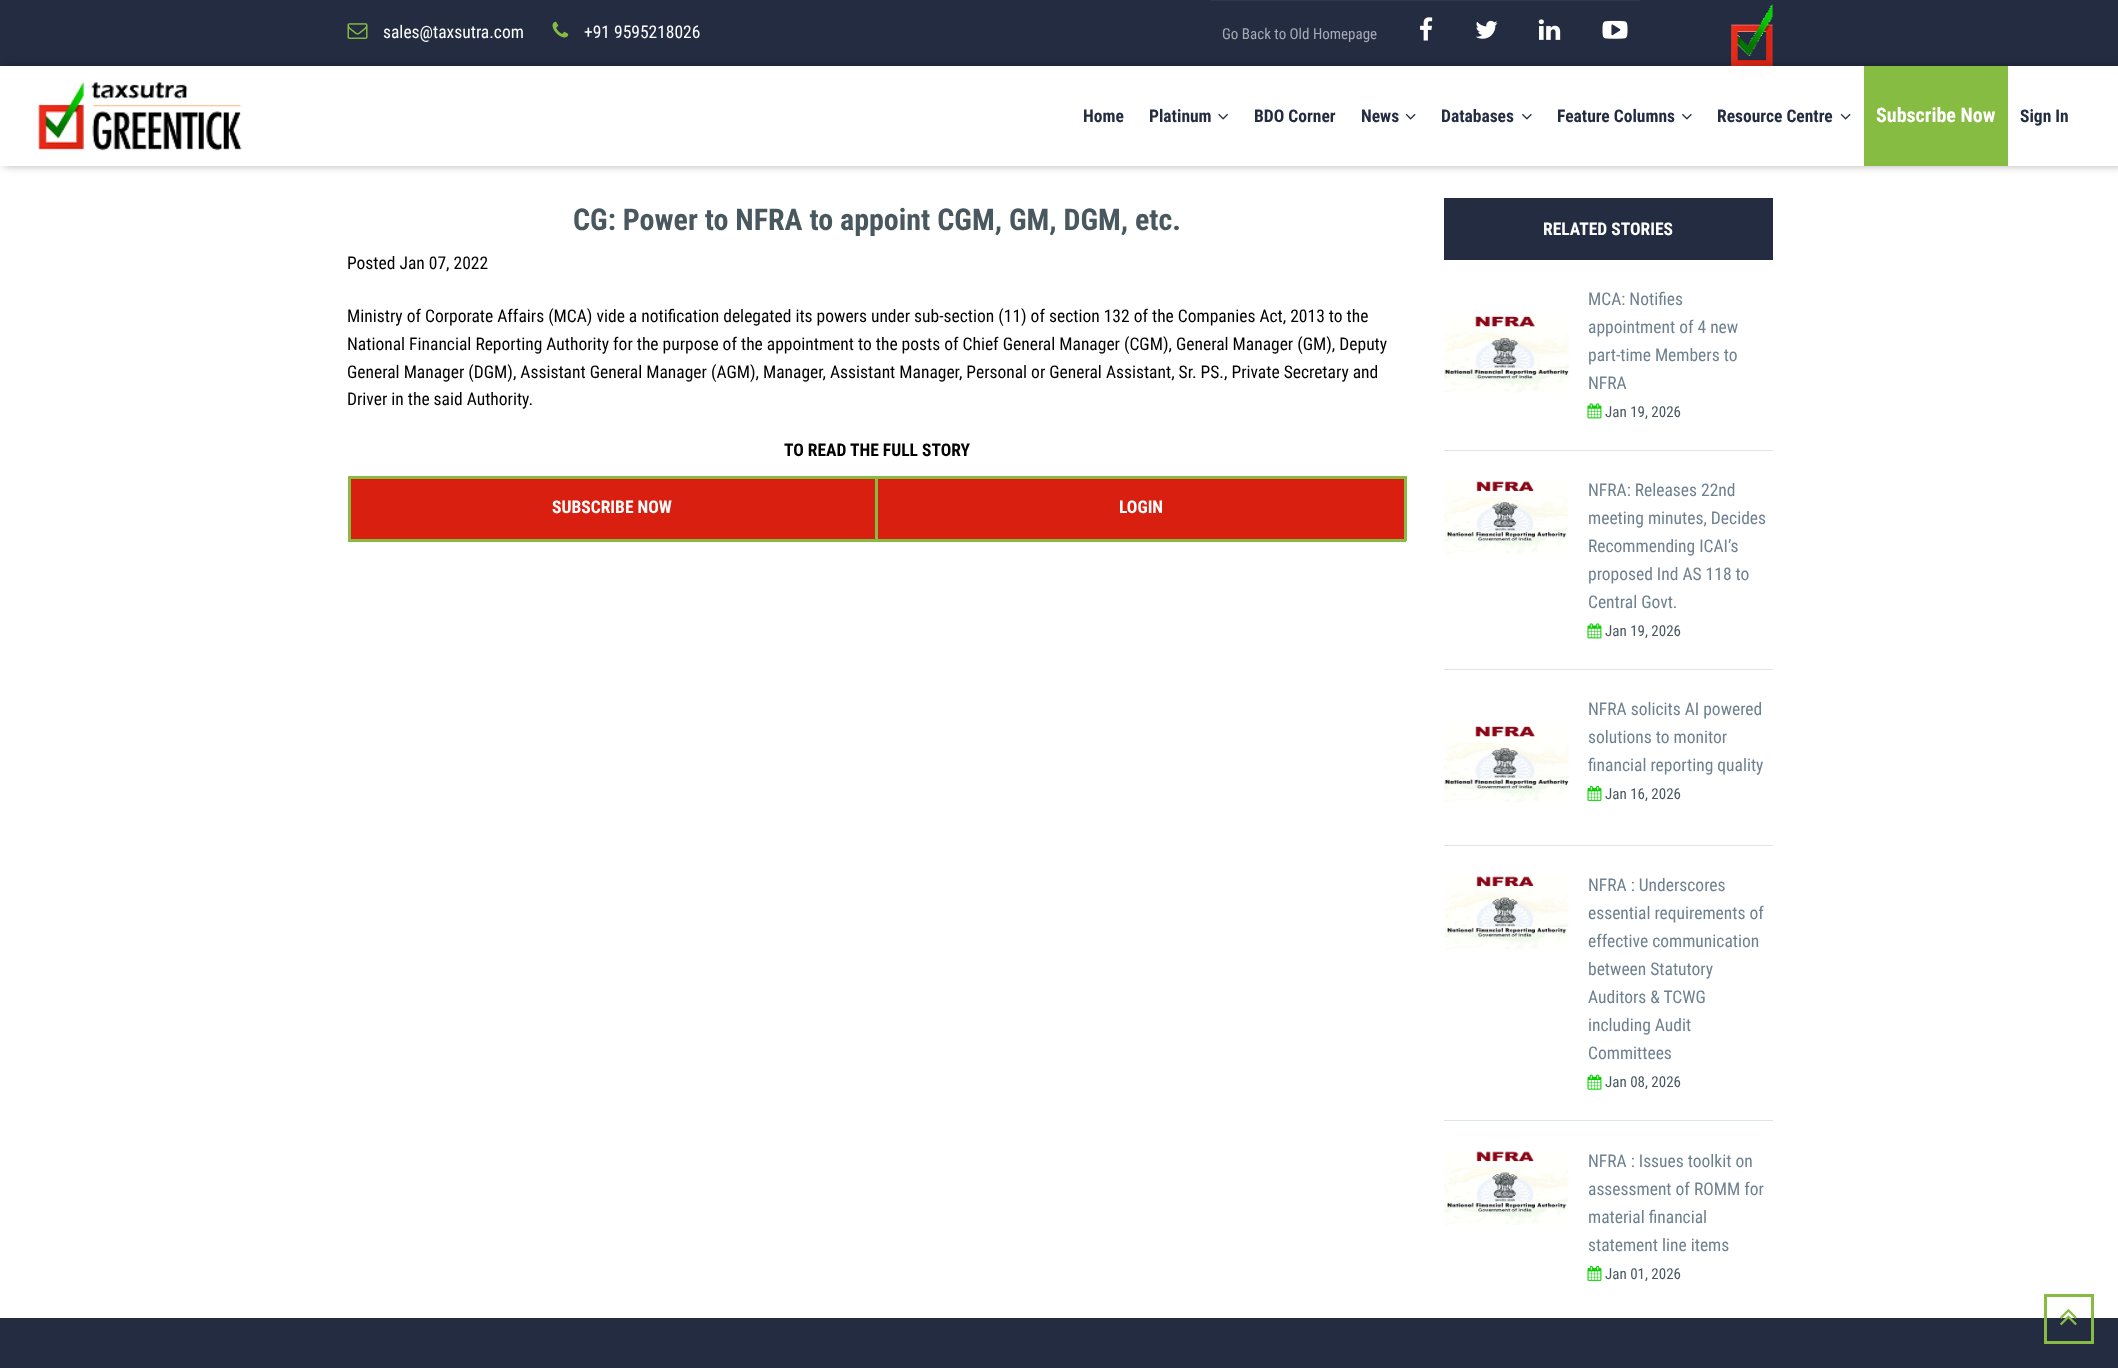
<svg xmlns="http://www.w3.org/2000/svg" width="2118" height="1368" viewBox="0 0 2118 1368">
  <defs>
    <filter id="blur1" x="-50%" y="-200%" width="200%" height="500%"><feGaussianBlur stdDeviation="4.5"/></filter>
  </defs>
  <rect width="100%" height="100%" fill="#ffffff"/>
  <rect x="0" y="0" width="2118" height="66" fill="#242c42"/>
  <image x="347" y="23" width="21" height="16" href="img1.png"/>
  <text x="383" y="38" font-family="Roboto Condensed" font-size="17.5" fill="#ffffff">sales@taxsutra.com</text>
  <image x="552" y="21" width="17" height="17" href="img2.png"/>
  <text x="584" y="38" font-family="Roboto Condensed" font-size="17.5" fill="#ffffff">+91 9595218026</text>
  <rect x="1210" y="0" width="430" height="1" fill="#2f374c"/>
  <text x="1222" y="39" font-family="Roboto Condensed" font-size="15" fill="#a7abb3">Go Back to Old Homepage</text>
  <image x="1420" y="17" width="13" height="24" href="img3.png"/>
  <image x="1475" y="20" width="23" height="19" href="img4.png"/>
  <image x="1538" y="19" width="23" height="21" href="img5.png"/>
  <image x="1602" y="20" width="26" height="19" href="img6.png"/>
  <image x="1731" y="4" width="42" height="62" href="img7.png"/>
  <rect x="4" y="66" width="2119" height="100" fill="#000000" fill-opacity="0.3" filter="url(#blur1)"/>
  <rect x="0" y="66" width="2118" height="100" fill="#ffffff"/>
  <image x="38" y="82" width="204" height="69" href="img8.png"/>
  <text x="1083" y="122" font-family="Roboto Condensed" font-size="17.5" font-weight="bold" fill="#242c42">Home</text>
  <text x="1149" y="122" font-family="Roboto Condensed" font-size="17.5" font-weight="bold" fill="#242c42">Platinum</text>
  <image x="1218" y="113" width="10" height="7" href="img9.png"/>
  <text x="1254" y="122" font-family="Roboto Condensed" font-size="17.5" font-weight="bold" fill="#242c42">BDO Corner</text>
  <text x="1361" y="122" font-family="Roboto Condensed" font-size="17.5" font-weight="bold" fill="#242c42">News</text>
  <image x="1405" y="113" width="11" height="7" href="img10.png"/>
  <text x="1441" y="122" font-family="Roboto Condensed" font-size="17.5" font-weight="bold" fill="#242c42">Databases</text>
  <image x="1522" y="113" width="10" height="7" href="img11.png"/>
  <text x="1557" y="122" font-family="Roboto Condensed" font-size="17.5" font-weight="bold" fill="#242c42">Feature Columns</text>
  <image x="1682" y="113" width="10" height="7" href="img11.png"/>
  <text x="1717" y="122" font-family="Roboto Condensed" font-size="17.5" font-weight="bold" fill="#242c42">Resource Centre</text>
  <image x="1840" y="113" width="11" height="7" href="img10.png"/>
  <rect x="1864" y="66" width="144" height="100" fill="#86bc42"/>
  <text x="1876" y="122" font-family="Roboto Condensed" font-size="20" font-weight="bold" fill="#ffffff">Subscribe Now</text>
  <text x="2020" y="122" font-family="Roboto Condensed" font-size="17.5" font-weight="bold" fill="#242c42">Sign In</text>
  <text x="573" y="230" font-family="Roboto Condensed" font-size="30" font-weight="bold" fill="#49575f">CG: Power to NFRA to appoint CGM, GM, DGM, etc.</text>
  <text x="347" y="269" font-family="Roboto Condensed" font-size="17.5" fill="#000000">Posted Jan 07, 2022</text>
  <text x="347" y="322" font-family="Roboto Condensed" font-size="17.5" fill="#000000">Ministry of Corporate Affairs (MCA) vide a notification delegated its powers under sub-section (11) of section 132 of the Companies Act, 2013 to the</text>
  <text x="347" y="350" font-family="Roboto Condensed" font-size="17.5" fill="#000000">National Financial Reporting Authority for the purpose of the appointment to the posts of Chief General Manager (CGM), General Manager (GM), Deputy</text>
  <text x="347" y="378" font-family="Roboto Condensed" font-size="17.5" fill="#000000">General Manager (DGM), Assistant General Manager (AGM), Manager, Assistant Manager, Personal or General Assistant, Sr. PS., Private Secretary and</text>
  <text x="347" y="405" font-family="Roboto Condensed" font-size="17.5" fill="#000000">Driver in the said Authority.</text>
  <text x="784" y="456" font-family="Roboto Condensed" font-size="17.5" font-weight="bold" fill="#000000">TO READ THE FULL STORY</text>
  <rect x="351" y="479" width="1053" height="60" fill="#d92010"/>
  <rect x="875" y="476" width="531" height="3" fill="#86bc42"/>
  <rect x="1404" y="476" width="3" height="65" fill="#86bc42"/>
  <rect x="875" y="539" width="531" height="3" fill="#86bc42"/>
  <rect x="875" y="476" width="3" height="65" fill="#86bc42"/>
  <rect x="348" y="476" width="530" height="3" fill="#86bc42"/>
  <rect x="348" y="539" width="530" height="3" fill="#86bc42"/>
  <rect x="348" y="476" width="3" height="65" fill="#86bc42"/>
  <text x="552" y="513" font-family="Roboto Condensed" font-size="17.5" font-weight="bold" fill="#ffffff">SUBSCRIBE NOW</text>
  <text x="1119" y="513" font-family="Roboto Condensed" font-size="17.5" font-weight="bold" fill="#ffffff">LOGIN</text>
  <rect x="1444" y="198" width="329" height="62" fill="#242c42"/>
  <text x="1543" y="235" font-family="Roboto Condensed" font-size="17.5" font-weight="bold" fill="#ffffff">RELATED STORIES</text>
  <rect x="1444" y="450" width="329" height="1" fill="#dee5e9"/>
  <image x="1444" y="315" width="125" height="78" href="img12.png"/>
  <text x="1588" y="305" font-family="Roboto Condensed" font-size="17.5" fill="#6f8190">MCA: Notifies</text>
  <text x="1588" y="333" font-family="Roboto Condensed" font-size="17.5" fill="#6f8190">appointment of 4 new</text>
  <text x="1588" y="361" font-family="Roboto Condensed" font-size="17.5" fill="#6f8190">part-time Members to</text>
  <text x="1588" y="389" font-family="Roboto Condensed" font-size="17.5" fill="#6f8190">NFRA</text>
  <image x="1587" y="403" width="15" height="16" href="img13.png"/>
  <text x="1605" y="417" font-family="Roboto Condensed" font-size="15" fill="#49575f">Jan 19, 2026</text>
  <rect x="1444" y="669" width="329" height="1" fill="#dee5e9"/>
  <image x="1444" y="481" width="125" height="74" href="img14.png"/>
  <text x="1588" y="496" font-family="Roboto Condensed" font-size="17.5" fill="#6f8190">NFRA: Releases 22nd</text>
  <text x="1588" y="524" font-family="Roboto Condensed" font-size="17.5" fill="#6f8190">meeting minutes, Decides</text>
  <text x="1588" y="552" font-family="Roboto Condensed" font-size="17.5" fill="#6f8190">Recommending ICAI’s</text>
  <text x="1588" y="580" font-family="Roboto Condensed" font-size="17.5" fill="#6f8190">proposed Ind AS 118 to</text>
  <text x="1588" y="608" font-family="Roboto Condensed" font-size="17.5" fill="#6f8190">Central Govt.</text>
  <image x="1587" y="623" width="15" height="16" href="img13.png"/>
  <text x="1605" y="636" font-family="Roboto Condensed" font-size="15" fill="#49575f">Jan 19, 2026</text>
  <rect x="1444" y="845" width="329" height="1" fill="#dee5e9"/>
  <image x="1444" y="725" width="125" height="78" href="img12.png"/>
  <text x="1588" y="715" font-family="Roboto Condensed" font-size="17.5" fill="#6f8190">NFRA solicits AI powered</text>
  <text x="1588" y="743" font-family="Roboto Condensed" font-size="17.5" fill="#6f8190">solutions to monitor</text>
  <text x="1588" y="771" font-family="Roboto Condensed" font-size="17.5" fill="#6f8190">financial reporting quality</text>
  <image x="1587" y="785" width="15" height="16" href="img15.png"/>
  <text x="1605" y="799" font-family="Roboto Condensed" font-size="15" fill="#49575f">Jan 16, 2026</text>
  <rect x="1444" y="1120" width="329" height="1" fill="#dee5e9"/>
  <image x="1444" y="876" width="125" height="75" href="img16.png"/>
  <text x="1588" y="891" font-family="Roboto Condensed" font-size="17.5" fill="#6f8190">NFRA : Underscores</text>
  <text x="1588" y="919" font-family="Roboto Condensed" font-size="17.5" fill="#6f8190">essential requirements of</text>
  <text x="1588" y="947" font-family="Roboto Condensed" font-size="17.5" fill="#6f8190">effective communication</text>
  <text x="1588" y="975" font-family="Roboto Condensed" font-size="17.5" fill="#6f8190">between Statutory</text>
  <text x="1588" y="1003" font-family="Roboto Condensed" font-size="17.5" fill="#6f8190">Auditors &amp; TCWG</text>
  <text x="1588" y="1031" font-family="Roboto Condensed" font-size="17.5" fill="#6f8190">including Audit</text>
  <text x="1588" y="1059" font-family="Roboto Condensed" font-size="17.5" fill="#6f8190">Committees</text>
  <image x="1587" y="1074" width="15" height="16" href="img17.png"/>
  <text x="1605" y="1087" font-family="Roboto Condensed" font-size="15" fill="#49575f">Jan 08, 2026</text>
  <image x="1444" y="1151" width="125" height="75" href="img16.png"/>
  <text x="1588" y="1167" font-family="Roboto Condensed" font-size="17.5" fill="#6f8190">NFRA : Issues toolkit on</text>
  <text x="1588" y="1195" font-family="Roboto Condensed" font-size="17.5" fill="#6f8190">assessment of ROMM for</text>
  <text x="1588" y="1223" font-family="Roboto Condensed" font-size="17.5" fill="#6f8190">material financial</text>
  <text x="1588" y="1251" font-family="Roboto Condensed" font-size="17.5" fill="#6f8190">statement line items</text>
  <image x="1587" y="1265" width="15" height="16" href="img15.png"/>
  <text x="1605" y="1279" font-family="Roboto Condensed" font-size="15" fill="#49575f">Jan 01, 2026</text>
  <rect x="0" y="1318" width="2118" height="50" fill="#242c42"/>
  <rect x="2045.5" y="1295.5" width="47" height="47" fill="none" stroke="#86bc42" stroke-width="3"/>
  <image x="2060" y="1309" width="17" height="17" href="img18.png"/>
</svg>
